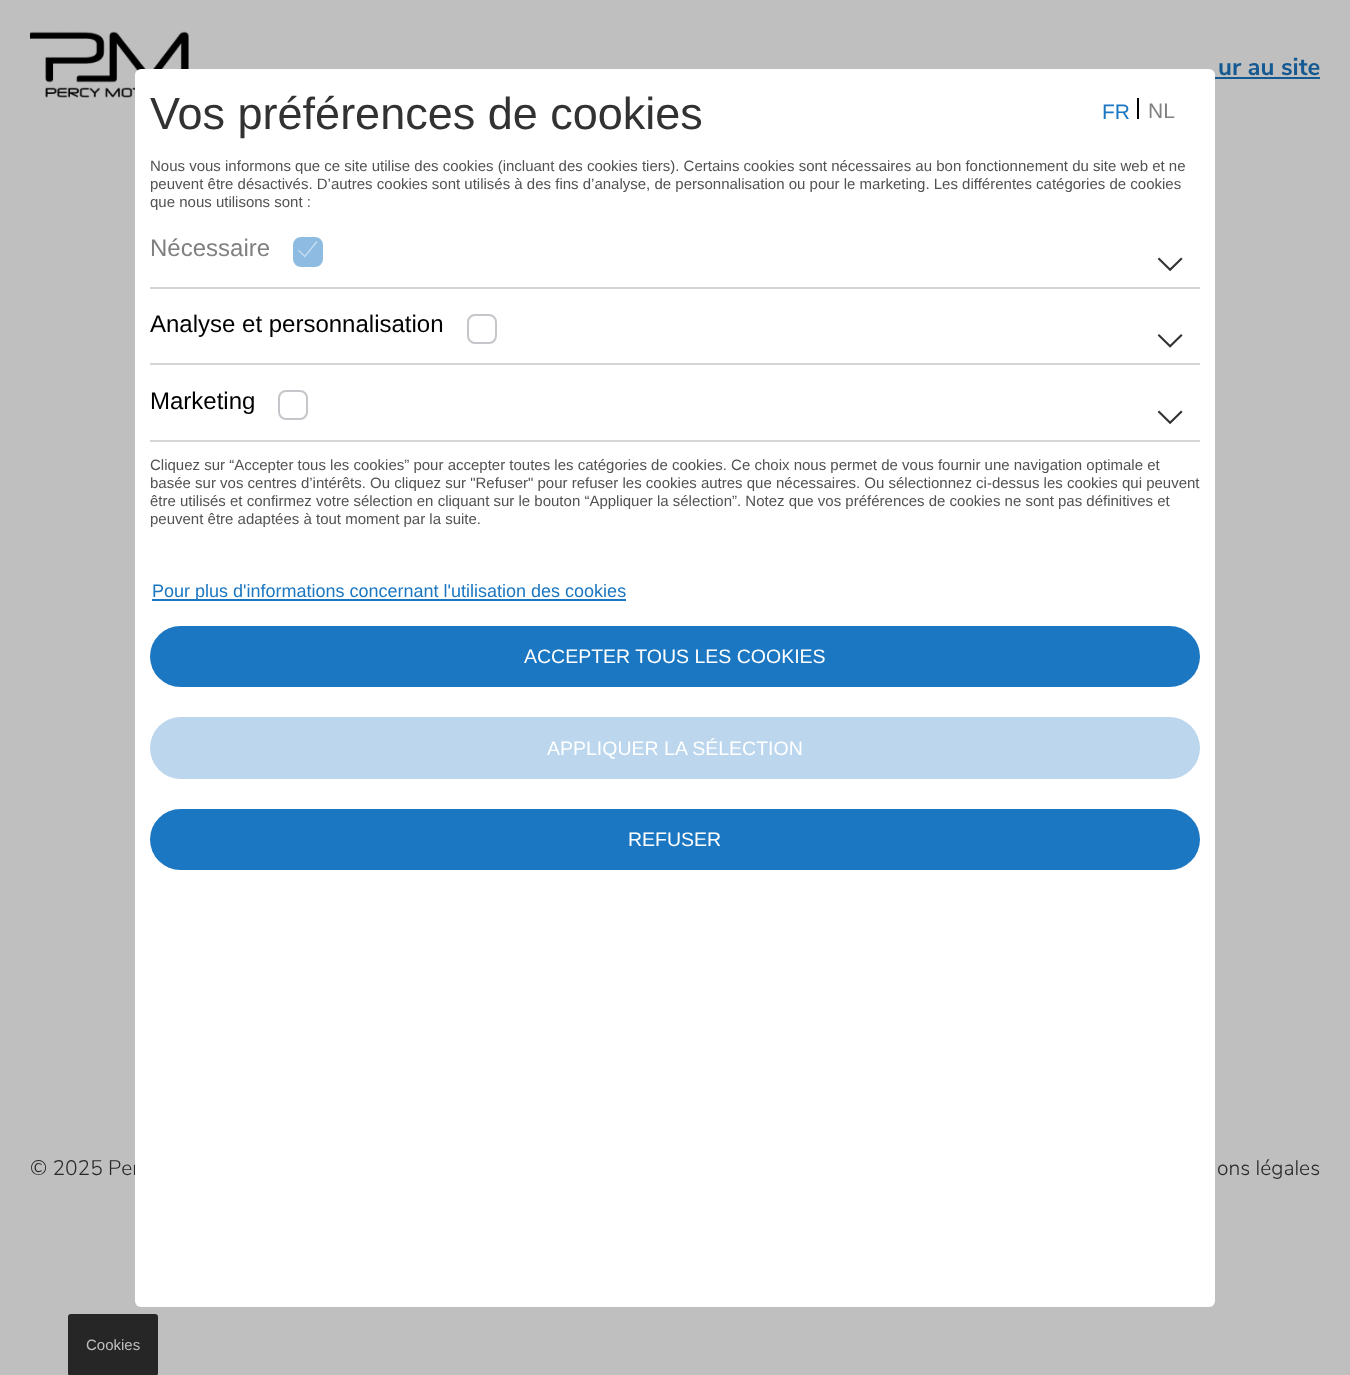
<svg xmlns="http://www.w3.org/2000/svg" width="1350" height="1375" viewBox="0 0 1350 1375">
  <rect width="100%" height="100%" fill="#bfbfbf"/>
  <image x="30" y="31" width="159" height="67" href="img1.png"/>
  <text x="1218" y="75" font-family="Nunito Sans" font-size="24" font-weight="bold" fill="#145992">ur au site</text>
  <rect x="1215" y="77" width="105" height="2" fill="#145992"/>
  <text x="30" y="1175" font-family="Nunito Sans" font-size="21" font-weight="300" fill="#282828">© 2025 Per</text>
  <text x="1217" y="1175" font-family="Nunito Sans" font-size="21" font-weight="300" fill="#282828">ons légales</text>
  <rect x="135" y="69" width="1080" height="1238" rx="6" fill="#ffffff"/>
  <text x="150" y="129" font-family="Liberation Sans" font-size="45" fill="#323232">Vos préférences de cookies</text>
  <text x="1102" y="119" font-family="Liberation Sans" font-size="21" fill="#1b77c2">FR</text>
  <rect x="1137" y="98" width="2" height="21" fill="#000000"/>
  <text x="1148" y="118" font-family="Liberation Sans" font-size="21" fill="#808080">NL</text>
  <text x="150" y="171" font-family="Liberation Sans" font-size="15" fill="#525252">Nous vous informons que ce site utilise des cookies (incluant des cookies tiers). Certains cookies sont nécessaires au bon fonctionnement du site web et ne</text>
  <text x="150" y="189" font-family="Liberation Sans" font-size="15" fill="#525252">peuvent être désactivés. D’autres cookies sont utilisés à des fins d’analyse, de personnalisation ou pour le marketing. Les différentes catégories de cookies</text>
  <text x="150" y="207" font-family="Liberation Sans" font-size="15" fill="#525252">que nous utilisons sont :</text>
  <text x="150" y="256" font-family="Liberation Sans" font-size="24" fill="#808080">Nécessaire</text>
  <rect x="294" y="238" width="28" height="28" rx="7" fill="#8dbbe1" stroke="#8dbbe1" stroke-width="2"/>
  <image x="298" y="241" width="20" height="17" href="img2.png"/>
  <image x="1157" y="257" width="26" height="15" href="img3.png"/>
  <rect x="150" y="287" width="1050" height="2" fill="#d5d5d5"/>
  <text x="150" y="332" font-family="Liberation Sans" font-size="24" fill="#000000">Analyse et personnalisation</text>
  <rect x="468" y="315" width="28" height="28" rx="7" fill="none" stroke="#c4c6c9" stroke-width="2"/>
  <image x="1157" y="334" width="26" height="14" href="img4.png"/>
  <rect x="150" y="363" width="1050" height="2" fill="#d5d5d5"/>
  <text x="150" y="409" font-family="Liberation Sans" font-size="24" fill="#000000">Marketing</text>
  <rect x="279" y="391" width="28" height="28" rx="7" fill="none" stroke="#c4c6c9" stroke-width="2"/>
  <image x="1157" y="410" width="26" height="15" href="img3.png"/>
  <rect x="150" y="440" width="1050" height="2" fill="#d5d5d5"/>
  <text x="150" y="470" font-family="Liberation Sans" font-size="15" fill="#525252">Cliquez sur “Accepter tous les cookies” pour accepter toutes les catégories de cookies. Ce choix nous permet de vous fournir une navigation optimale et</text>
  <text x="150" y="488" font-family="Liberation Sans" font-size="15" fill="#525252">basée sur vos centres d’intérêts. Ou cliquez sur "Refuser" pour refuser les cookies autres que nécessaires. Ou sélectionnez ci-dessus les cookies qui peuvent</text>
  <text x="150" y="506" font-family="Liberation Sans" font-size="15" fill="#525252">être utilisés et confirmez votre sélection en cliquant sur le bouton “Appliquer la sélection”. Notez que vos préférences de cookies ne sont pas définitives et</text>
  <text x="150" y="524" font-family="Liberation Sans" font-size="15" fill="#525252">peuvent être adaptées à tout moment par la suite.</text>
  <rect x="152" y="599" width="474" height="2" fill="#1b77c2"/>
  <text x="152" y="597" font-family="Liberation Sans" font-size="18" fill="#1b77c2">Pour plus d'informations concernant l'utilisation des cookies</text>
  <rect x="150" y="626" width="1050" height="61" rx="30.5" fill="#1b77c2"/>
  <text x="524" y="663" font-family="Liberation Sans" font-size="19.5" fill="#ffffff">ACCEPTER TOUS LES COOKIES</text>
  <rect x="150" y="717" width="1050" height="62" rx="31" fill="#bbd6ed"/>
  <text x="547" y="755" font-family="Liberation Sans" font-size="19.5" fill="#ffffff">APPLIQUER LA SÉLECTION</text>
  <rect x="150" y="809" width="1050" height="61" rx="30.5" fill="#1b77c2"/>
  <text x="628" y="846" font-family="Liberation Sans" font-size="19.5" fill="#ffffff">REFUSER</text>
  <rect x="68" y="1314" width="90" height="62" rx="3" fill="#262626"/>
  <text x="86" y="1350" font-family="Liberation Sans" font-size="15" fill="#bfbfbf">Cookies</text>
</svg>
